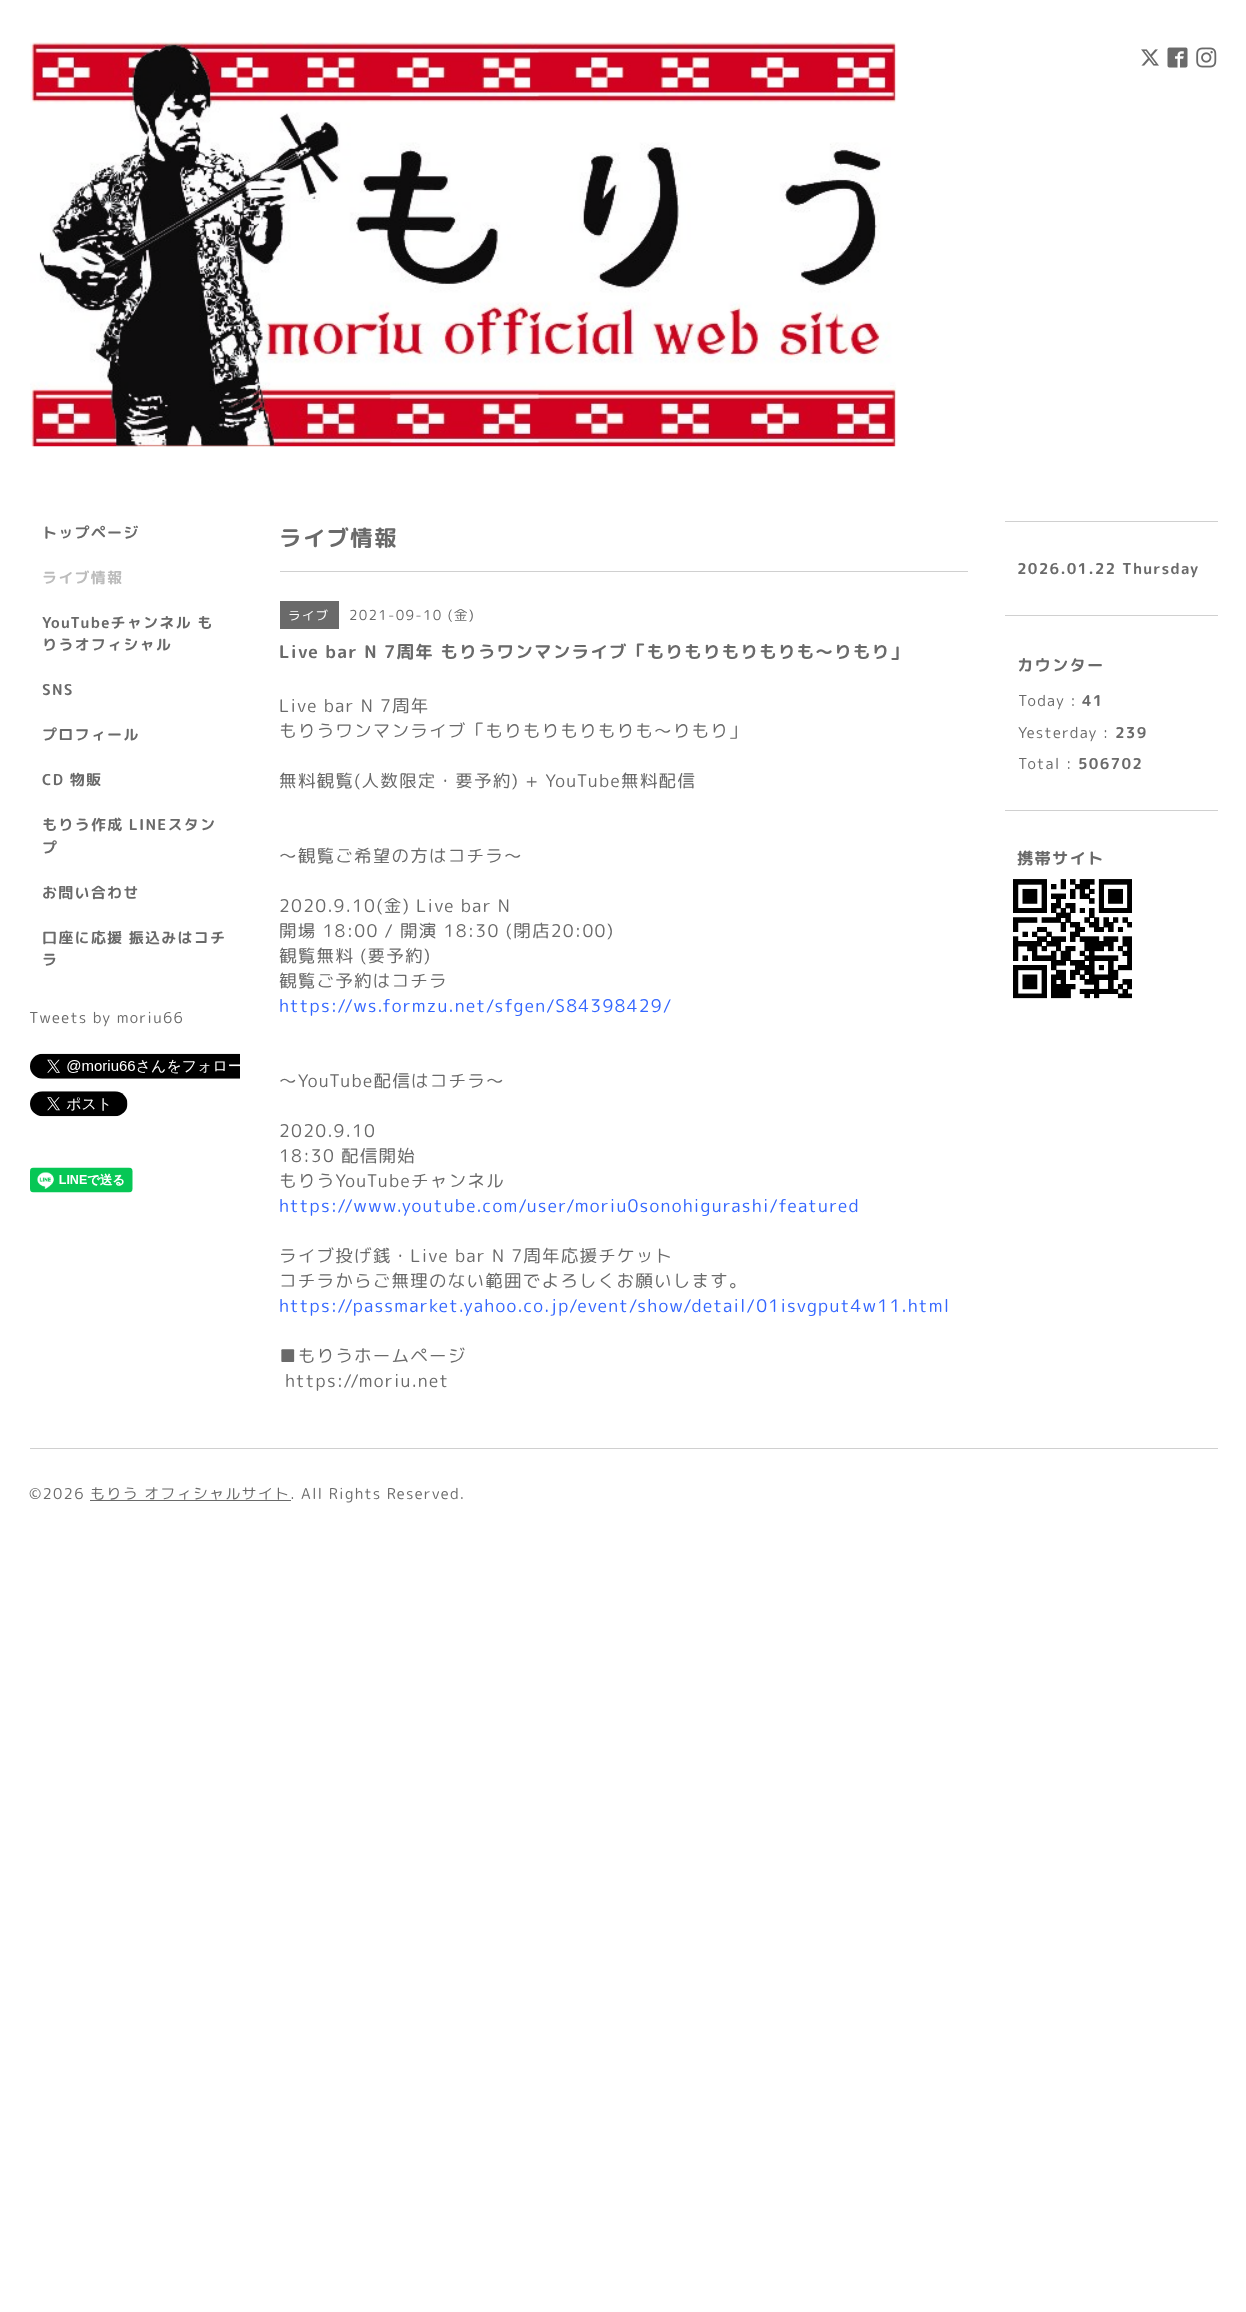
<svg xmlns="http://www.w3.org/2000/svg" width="1246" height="2312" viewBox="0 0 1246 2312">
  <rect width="100%" height="100%" fill="#ffffff"/>
  <image x="30" y="42" width="867" height="405" href="img1.png"/>
  <image x="1141" y="49" width="18" height="17" href="img2.png"/>
  <image x="1167" y="47" width="21" height="21" href="img3.png"/>
  <image x="1196" y="47" width="21" height="21" href="img4.png"/>
  <text x="42" y="538" font-family="'Rounded Mplus 1c Bold'" font-size="15" font-weight="bold" letter-spacing="1.25" fill="#6a6a6a">トップページ</text>
  <text x="42" y="583" font-family="'Rounded Mplus 1c Bold'" font-size="15" font-weight="bold" letter-spacing="1.25" fill="#bcbcbc">ライブ情報</text>
  <text x="42" y="628" font-family="'Rounded Mplus 1c Bold'" font-size="15" font-weight="bold" letter-spacing="1.25" fill="#6a6a6a">YouTubeチャンネル も</text>
  <text x="42" y="650" font-family="'Rounded Mplus 1c Bold'" font-size="15" font-weight="bold" letter-spacing="1.25" fill="#6a6a6a">りうオフィシャル</text>
  <text x="42" y="695" font-family="'Rounded Mplus 1c Bold'" font-size="15" font-weight="bold" letter-spacing="1.25" fill="#6a6a6a">SNS</text>
  <text x="42" y="740" font-family="'Rounded Mplus 1c Bold'" font-size="15" font-weight="bold" letter-spacing="1.25" fill="#6a6a6a">プロフィール</text>
  <text x="42" y="785" font-family="'Rounded Mplus 1c Bold'" font-size="15" font-weight="bold" letter-spacing="1.25" fill="#6a6a6a">CD 物販</text>
  <text x="42" y="830" font-family="'Rounded Mplus 1c Bold'" font-size="15" font-weight="bold" letter-spacing="1.25" fill="#6a6a6a">もりう作成 LINEスタン</text>
  <text x="42" y="853" font-family="'Rounded Mplus 1c Bold'" font-size="15" font-weight="bold" letter-spacing="1.25" fill="#6a6a6a">プ</text>
  <text x="42" y="898" font-family="'Rounded Mplus 1c Bold'" font-size="15" font-weight="bold" letter-spacing="1.25" fill="#6a6a6a">お問い合わせ</text>
  <text x="42" y="943" font-family="'Rounded Mplus 1c Bold'" font-size="15" font-weight="bold" letter-spacing="1.25" fill="#6a6a6a">口座に応援 振込みはコチ</text>
  <text x="42" y="965" font-family="'Rounded Mplus 1c Bold'" font-size="15" font-weight="bold" letter-spacing="1.25" fill="#6a6a6a">ラ</text>
  <text x="29" y="1023" font-family="'Rounded Mplus 1c'" font-size="15" letter-spacing="1.25" fill="#6a6a6a">Tweets by moriu66</text>
  <image x="30" y="1053" width="210" height="26" href="img5.png"/>
  <image x="30" y="1091" width="98" height="26" href="img6.png"/>
  <image x="30" y="1167" width="103" height="26" href="img7.png"/>
  <text x="279" y="546" font-family="'Rounded Mplus 1c Bold'" font-size="22.5" font-weight="bold" letter-spacing="1.25" fill="#6a6a6a">ライブ情報</text>
  <rect x="280" y="571" width="688" height="1" fill="#d0d0d0"/>
  <rect x="280" y="601" width="59" height="28" fill="#6a6a6a"/>
  <text x="288" y="620" font-family="'Rounded Mplus 1c'" font-size="12.5" letter-spacing="1.25" fill="#ffffff">ライブ</text>
  <text x="349" y="620" font-family="'Rounded Mplus 1c'" font-size="13.75" letter-spacing="1.25" fill="#6a6a6a">2021-09-10 (金)</text>
  <text x="279" y="658" font-family="'Rounded Mplus 1c Bold'" font-size="17.5" font-weight="bold" letter-spacing="1.25" fill="#6a6a6a">Live bar N 7周年 もりうワンマンライブ「もりもりもりもりも〜りもり」</text>
  <text x="279" y="712" font-family="'Rounded Mplus 1c'" font-size="17.5" letter-spacing="1.25" fill="#6a6a6a">Live bar N 7周年</text>
  <text x="279" y="737" font-family="'Rounded Mplus 1c'" font-size="17.5" letter-spacing="1.25" fill="#6a6a6a">もりうワンマンライブ「もりもりもりもりも〜りもり」</text>
  <text x="279" y="787" font-family="'Rounded Mplus 1c'" font-size="17.5" letter-spacing="1.25" fill="#6a6a6a">無料観覧(人数限定・要予約) + YouTube無料配信</text>
  <text x="279" y="862" font-family="'Rounded Mplus 1c'" font-size="17.5" letter-spacing="1.25" fill="#6a6a6a">〜観覧ご希望の方はコチラ〜</text>
  <text x="279" y="912" font-family="'Rounded Mplus 1c'" font-size="17.5" letter-spacing="1.25" fill="#6a6a6a">2020.9.10(金) Live bar N</text>
  <text x="279" y="937" font-family="'Rounded Mplus 1c'" font-size="17.5" letter-spacing="1.25" fill="#6a6a6a">開場 18:00 / 開演 18:30 (閉店20:00)</text>
  <text x="279" y="962" font-family="'Rounded Mplus 1c'" font-size="17.5" letter-spacing="1.25" fill="#6a6a6a">観覧無料 (要予約)</text>
  <text x="279" y="987" font-family="'Rounded Mplus 1c'" font-size="17.5" letter-spacing="1.25" fill="#6a6a6a">観覧ご予約はコチラ</text>
  <text x="279" y="1012" font-family="'Rounded Mplus 1c'" font-size="17.5" letter-spacing="1.25" fill="#3366ff">https://ws.formzu.net/sfgen/S84398429/</text>
  <text x="279" y="1087" font-family="'Rounded Mplus 1c'" font-size="17.5" letter-spacing="1.25" fill="#6a6a6a">〜YouTube配信はコチラ〜</text>
  <text x="279" y="1137" font-family="'Rounded Mplus 1c'" font-size="17.5" letter-spacing="1.25" fill="#6a6a6a">2020.9.10</text>
  <text x="279" y="1162" font-family="'Rounded Mplus 1c'" font-size="17.5" letter-spacing="1.25" fill="#6a6a6a">18:30 配信開始</text>
  <text x="279" y="1187" font-family="'Rounded Mplus 1c'" font-size="17.5" letter-spacing="1.25" fill="#6a6a6a">もりうYouTubeチャンネル</text>
  <text x="279" y="1212" font-family="'Rounded Mplus 1c'" font-size="17.5" letter-spacing="1.25" fill="#3366ff">https://www.youtube.com/user/moriu0sonohigurashi/featured</text>
  <text x="279" y="1262" font-family="'Rounded Mplus 1c'" font-size="17.5" letter-spacing="1.25" fill="#6a6a6a">ライブ投げ銭・Live bar N 7周年応援チケット</text>
  <text x="279" y="1287" font-family="'Rounded Mplus 1c'" font-size="17.5" letter-spacing="1.25" fill="#6a6a6a">コチラからご無理のない範囲でよろしくお願いします。</text>
  <text x="279" y="1312" font-family="'Rounded Mplus 1c'" font-size="17.5" letter-spacing="1.25" fill="#3366ff">https://passmarket.yahoo.co.jp/event/show/detail/01isvgput4w11.html</text>
  <text x="279" y="1362" font-family="'Rounded Mplus 1c'" font-size="17.5" letter-spacing="1.25" fill="#6a6a6a">■もりうホームページ</text>
  <text x="285" y="1387" font-family="'Rounded Mplus 1c'" font-size="17.5" letter-spacing="1.25" fill="#6a6a6a">https://moriu.net</text>
  <rect x="1005" y="521" width="213" height="1" fill="#d0d0d0"/>
  <rect x="1005" y="615" width="213" height="1" fill="#d0d0d0"/>
  <text x="1017" y="574" font-family="'Rounded Mplus 1c Bold'" font-size="15" font-weight="bold" letter-spacing="1.25" fill="#6a6a6a">2026.01.22 Thursday</text>
  <rect x="1005" y="810" width="213" height="1" fill="#d0d0d0"/>
  <text x="1017" y="671" font-family="'Rounded Mplus 1c Bold'" font-size="16.25" font-weight="bold" letter-spacing="1.25" fill="#6a6a6a">カウンター</text>
  <text x="1018" y="706" font-family="'Rounded Mplus 1c'" font-size="15" letter-spacing="1.25" fill="#6a6a6a">Today :</text>
  <text x="1082" y="706" font-family="'Rounded Mplus 1c Bold'" font-size="15" font-weight="bold" letter-spacing="1.25" fill="#6a6a6a">41</text>
  <text x="1018" y="738" font-family="'Rounded Mplus 1c'" font-size="15" letter-spacing="1.25" fill="#6a6a6a">Yesterday :</text>
  <text x="1115" y="738" font-family="'Rounded Mplus 1c Bold'" font-size="15" font-weight="bold" letter-spacing="1.25" fill="#6a6a6a">239</text>
  <text x="1018" y="769" font-family="'Rounded Mplus 1c'" font-size="15" letter-spacing="1.25" fill="#6a6a6a">Total :</text>
  <text x="1078" y="769" font-family="'Rounded Mplus 1c Bold'" font-size="15" font-weight="bold" letter-spacing="1.25" fill="#6a6a6a">506702</text>
  <text x="1017" y="864" font-family="'Rounded Mplus 1c Bold'" font-size="16.25" font-weight="bold" letter-spacing="1.25" fill="#6a6a6a">携帯サイト</text>
  <image x="1013" y="879" width="119" height="120" href="img8.png"/>
  <rect x="30" y="1448" width="1188" height="1" fill="#d0d0d0"/>
  <text x="29" y="1499" font-family="'Rounded Mplus 1c'" font-size="15" letter-spacing="1.25" fill="#6a6a6a">©2026 もりう オフィシャルサイト. All Rights Reserved.</text>
  <rect x="90" y="1500" width="201" height="1" fill="#6a6a6a"/>
</svg>
